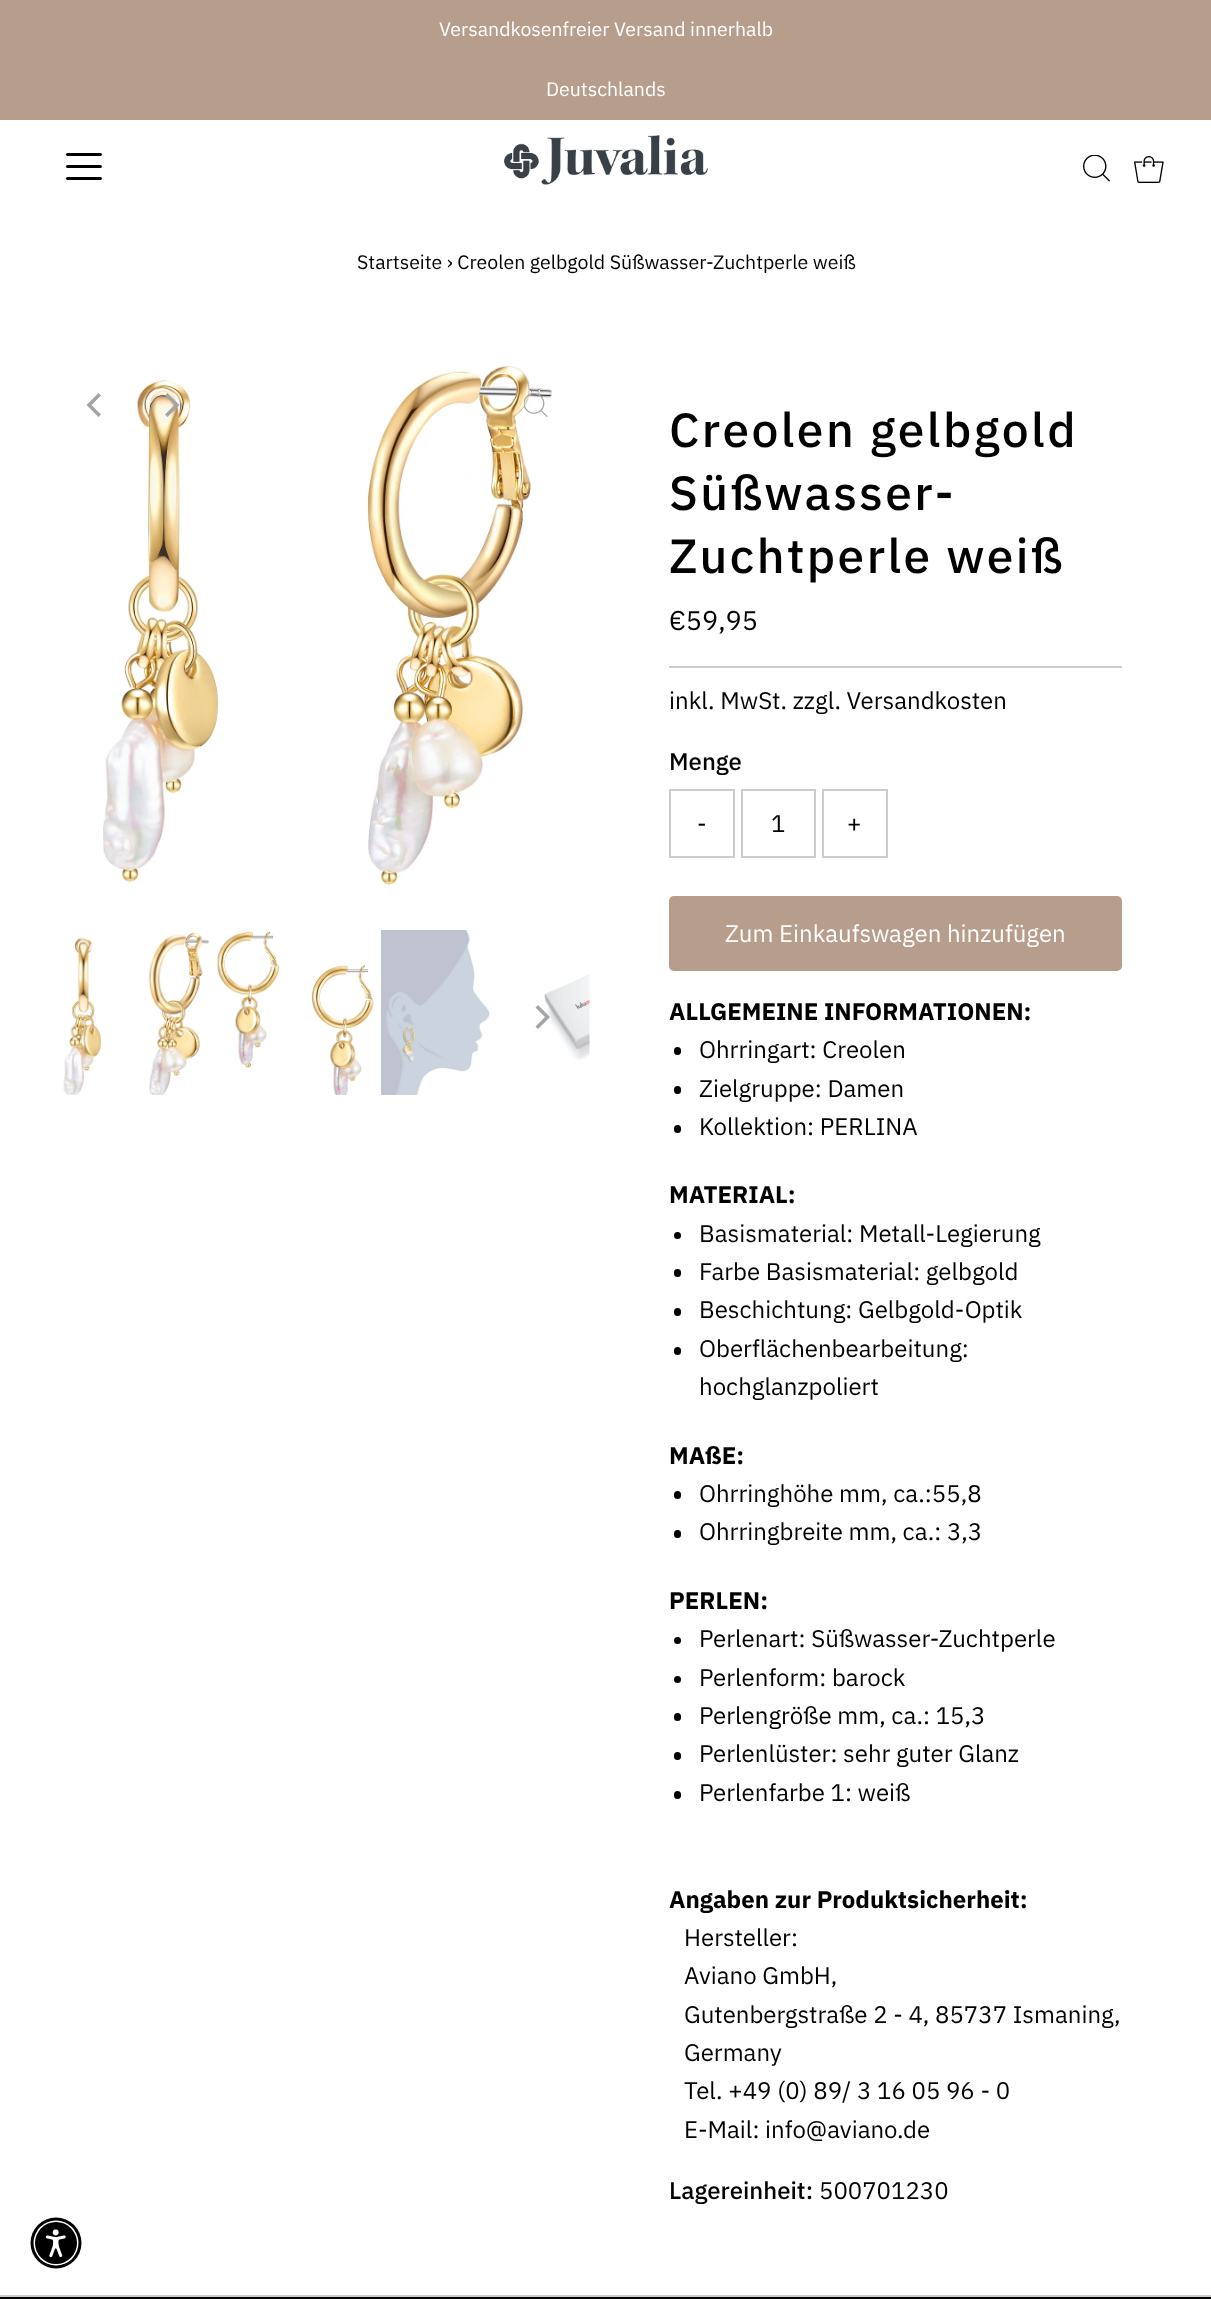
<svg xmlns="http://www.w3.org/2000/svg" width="1211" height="2299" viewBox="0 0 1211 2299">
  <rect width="100%" height="100%" fill="#ffffff"/>
  <rect x="0" y="0" width="1211" height="120" fill="#b79e8c"/>
  <text x="439" y="36" font-family="IBM Plex Sans" font-size="19.5" fill="#ffffff">Versandkosenfreier Versand innerhalb</text>
  <text x="546" y="96" font-family="IBM Plex Sans" font-size="19.5" fill="#ffffff">Deutschlands</text>
  <image x="66" y="153" width="36" height="27" href="img1.png"/>
  <image x="504" y="135" width="204" height="50" href="img2.png"/>
  <image x="1083" y="155" width="27" height="27" href="img3.png"/>
  <image x="1134" y="156" width="30" height="27" href="img4.png"/>
  <text x="357" y="269" font-family="IBM Plex Sans" font-size="19.5" fill="#000000">Startseite › Creolen gelbgold Süßwasser-Zuchtperle weiß</text>
  <path d="M86.5 405L98.5 417L101 414.5L91.5 405L101 395.5L98.5 393Z" fill="#a4a4a4"/>
  <image x="103" y="365" width="450" height="520" href="img5.png"/>
  <image x="524" y="393" width="24" height="24" href="img6.png"/>
  <path d="M179.5 405L167.5 393L165 395.5L174.5 405L165 414.5L167.5 417Z" fill="#a4a4a4"/>
  <image x="63" y="932" width="147" height="163" href="img7.png"/>
  <image x="217" y="931" width="157" height="164" href="img8.png"/>
  <image x="381" y="930" width="109" height="165" href="img9.png"/>
  <image x="544" y="974" width="46" height="86" href="img10.png"/>
  <path d="M550 1017L538 1005L535.5 1007.5L545 1017L535.5 1026.5L538 1029Z" fill="#a4a4a4"/>
  <text x="669" y="447" font-family="IBM Plex Sans" font-size="48" font-weight="500" letter-spacing="2.4" fill="#000000">Creolen gelbgold</text>
  <text x="669" y="510" font-family="IBM Plex Sans" font-size="48" font-weight="500" letter-spacing="2.4" fill="#000000">Süßwasser-</text>
  <text x="669" y="573" font-family="IBM Plex Sans" font-size="48" font-weight="500" letter-spacing="2.4" fill="#000000">Zuchtperle weiß</text>
  <rect x="669" y="666" width="453" height="2" fill="#cccccc"/>
  <text x="669" y="630" font-family="IBM Plex Sans" font-size="27" fill="#000000">€59,95</text>
  <text x="669" y="709" font-family="IBM Plex Sans" font-size="24" fill="#000000">inkl. MwSt. zzgl. Versandkosten</text>
  <text x="669" y="770" font-family="IBM Plex Sans" font-size="24" font-weight="500" fill="#000000">Menge</text>
  <rect x="670" y="790" width="64" height="67" fill="none" stroke="#cccccc" stroke-width="2"/>
  <text x="697" y="832" font-family="IBM Plex Sans" font-size="24" fill="#000000">-</text>
  <rect x="742" y="790" width="73" height="67" fill="none" stroke="#cccccc" stroke-width="2"/>
  <text x="771" y="832" font-family="IBM Plex Sans" font-size="24" fill="#000000">1</text>
  <rect x="823" y="790" width="64" height="67" fill="none" stroke="#cccccc" stroke-width="2"/>
  <text x="847" y="832" font-family="IBM Plex Sans" font-size="24" fill="#000000">+</text>
  <rect x="669" y="896" width="453" height="75" rx="5" fill="#b79e8c"/>
  <text x="725" y="942" font-family="IBM Plex Sans" font-size="24" fill="#ffffff">Zum Einkaufswagen hinzufügen</text>
  <text x="669" y="1020" font-family="IBM Plex Sans" font-size="24" font-weight="bold" fill="#000000">ALLGEMEINE INFORMATIONEN:</text>
  <rect x="674" y="1047" width="7" height="8" rx="3.5" fill="#000000"/>
  <text x="699" y="1058" font-family="IBM Plex Sans" font-size="24" fill="#000000">Ohrringart: Creolen</text>
  <rect x="674" y="1086" width="7" height="8" rx="3.5" fill="#000000"/>
  <text x="699" y="1097" font-family="IBM Plex Sans" font-size="24" fill="#000000">Zielgruppe: Damen</text>
  <rect x="674" y="1125" width="7" height="8" rx="3.5" fill="#000000"/>
  <text x="699" y="1135" font-family="IBM Plex Sans" font-size="24" fill="#000000">Kollektion: PERLINA</text>
  <text x="669" y="1203" font-family="IBM Plex Sans" font-size="24" font-weight="bold" fill="#000000">MATERIAL:</text>
  <circle cx="677.5" cy="1235.5" r="3.5" fill="#000000"/>
  <text x="699" y="1242" font-family="IBM Plex Sans" font-size="24" fill="#000000">Basismaterial: Metall-Legierung</text>
  <rect x="674" y="1269" width="7" height="8" rx="3.5" fill="#000000"/>
  <text x="699" y="1280" font-family="IBM Plex Sans" font-size="24" fill="#000000">Farbe Basismaterial: gelbgold</text>
  <rect x="674" y="1308" width="7" height="8" rx="3.5" fill="#000000"/>
  <text x="699" y="1318" font-family="IBM Plex Sans" font-size="24" fill="#000000">Beschichtung: Gelbgold-Optik</text>
  <rect x="674" y="1347" width="7" height="8" rx="3.5" fill="#000000"/>
  <text x="699" y="1357" font-family="IBM Plex Sans" font-size="24" fill="#000000">Oberflächenbearbeitung:</text>
  <text x="699" y="1395" font-family="IBM Plex Sans" font-size="24" fill="#000000">hochglanzpoliert</text>
  <text x="669" y="1464" font-family="IBM Plex Sans" font-size="24" font-weight="bold" fill="#000000">MAßE:</text>
  <rect x="674" y="1491" width="7" height="8" rx="3.5" fill="#000000"/>
  <text x="699" y="1502" font-family="IBM Plex Sans" font-size="24" fill="#000000">Ohrringhöhe mm, ca.:55,8</text>
  <rect x="674" y="1530" width="7" height="8" rx="3.5" fill="#000000"/>
  <text x="699" y="1540" font-family="IBM Plex Sans" font-size="24" fill="#000000">Ohrringbreite mm, ca.: 3,3</text>
  <text x="669" y="1609" font-family="IBM Plex Sans" font-size="24" font-weight="bold" fill="#000000">PERLEN:</text>
  <circle cx="677.5" cy="1640.5" r="3.5" fill="#000000"/>
  <text x="699" y="1647" font-family="IBM Plex Sans" font-size="24" fill="#000000">Perlenart: Süßwasser-Zuchtperle</text>
  <circle cx="677.5" cy="1679.5" r="3.5" fill="#000000"/>
  <text x="699" y="1686" font-family="IBM Plex Sans" font-size="24" fill="#000000">Perlenform: barock</text>
  <rect x="674" y="1713" width="7" height="8" rx="3.5" fill="#000000"/>
  <text x="699" y="1724" font-family="IBM Plex Sans" font-size="24" fill="#000000">Perlengröße mm, ca.: 15,3</text>
  <rect x="674" y="1752" width="7" height="8" rx="3.5" fill="#000000"/>
  <text x="699" y="1762" font-family="IBM Plex Sans" font-size="24" fill="#000000">Perlenlüster: sehr guter Glanz</text>
  <rect x="674" y="1791" width="7" height="8" rx="3.5" fill="#000000"/>
  <text x="699" y="1801" font-family="IBM Plex Sans" font-size="24" fill="#000000">Perlenfarbe 1: weiß</text>
  <text x="669" y="1908" font-family="IBM Plex Sans" font-size="24" font-weight="bold" fill="#000000">Angaben zur Produktsicherheit:</text>
  <text x="684" y="1946" font-family="IBM Plex Sans" font-size="24" fill="#000000">Hersteller:</text>
  <text x="684" y="1984" font-family="IBM Plex Sans" font-size="24" fill="#000000">Aviano GmbH,</text>
  <text x="684" y="2023" font-family="IBM Plex Sans" font-size="24" fill="#000000">Gutenbergstraße 2 - 4, 85737 Ismaning,</text>
  <text x="684" y="2061" font-family="IBM Plex Sans" font-size="24" fill="#000000">Germany</text>
  <text x="684" y="2099" font-family="IBM Plex Sans" font-size="24" fill="#000000">Tel. +49 (0) 89/ 3 16 05 96 - 0</text>
  <text x="684" y="2138" font-family="IBM Plex Sans" font-size="24" fill="#000000">E-Mail: info@aviano.de</text>
  <text x="669" y="2199" font-family="IBM Plex Sans" font-size="24" font-weight="500" fill="#000000">Lagereinheit:</text>
  <text x="819" y="2199" font-family="IBM Plex Sans" font-size="24" fill="#000000">500701230</text>
  <rect x="0" y="2297" width="1211" height="2" fill="#000000"/>
  <rect x="0" y="2295" width="1211" height="2" fill="#cccccc"/>
  <circle cx="56" cy="2243" r="25.5" fill="#000000"/>
  <circle cx="56" cy="2243" r="22.5" fill="#ffffff"/>
  <circle cx="56" cy="2243" r="21" fill="#000000"/>
  <image x="45" y="2229" width="21" height="29" href="img11.png"/>
</svg>
